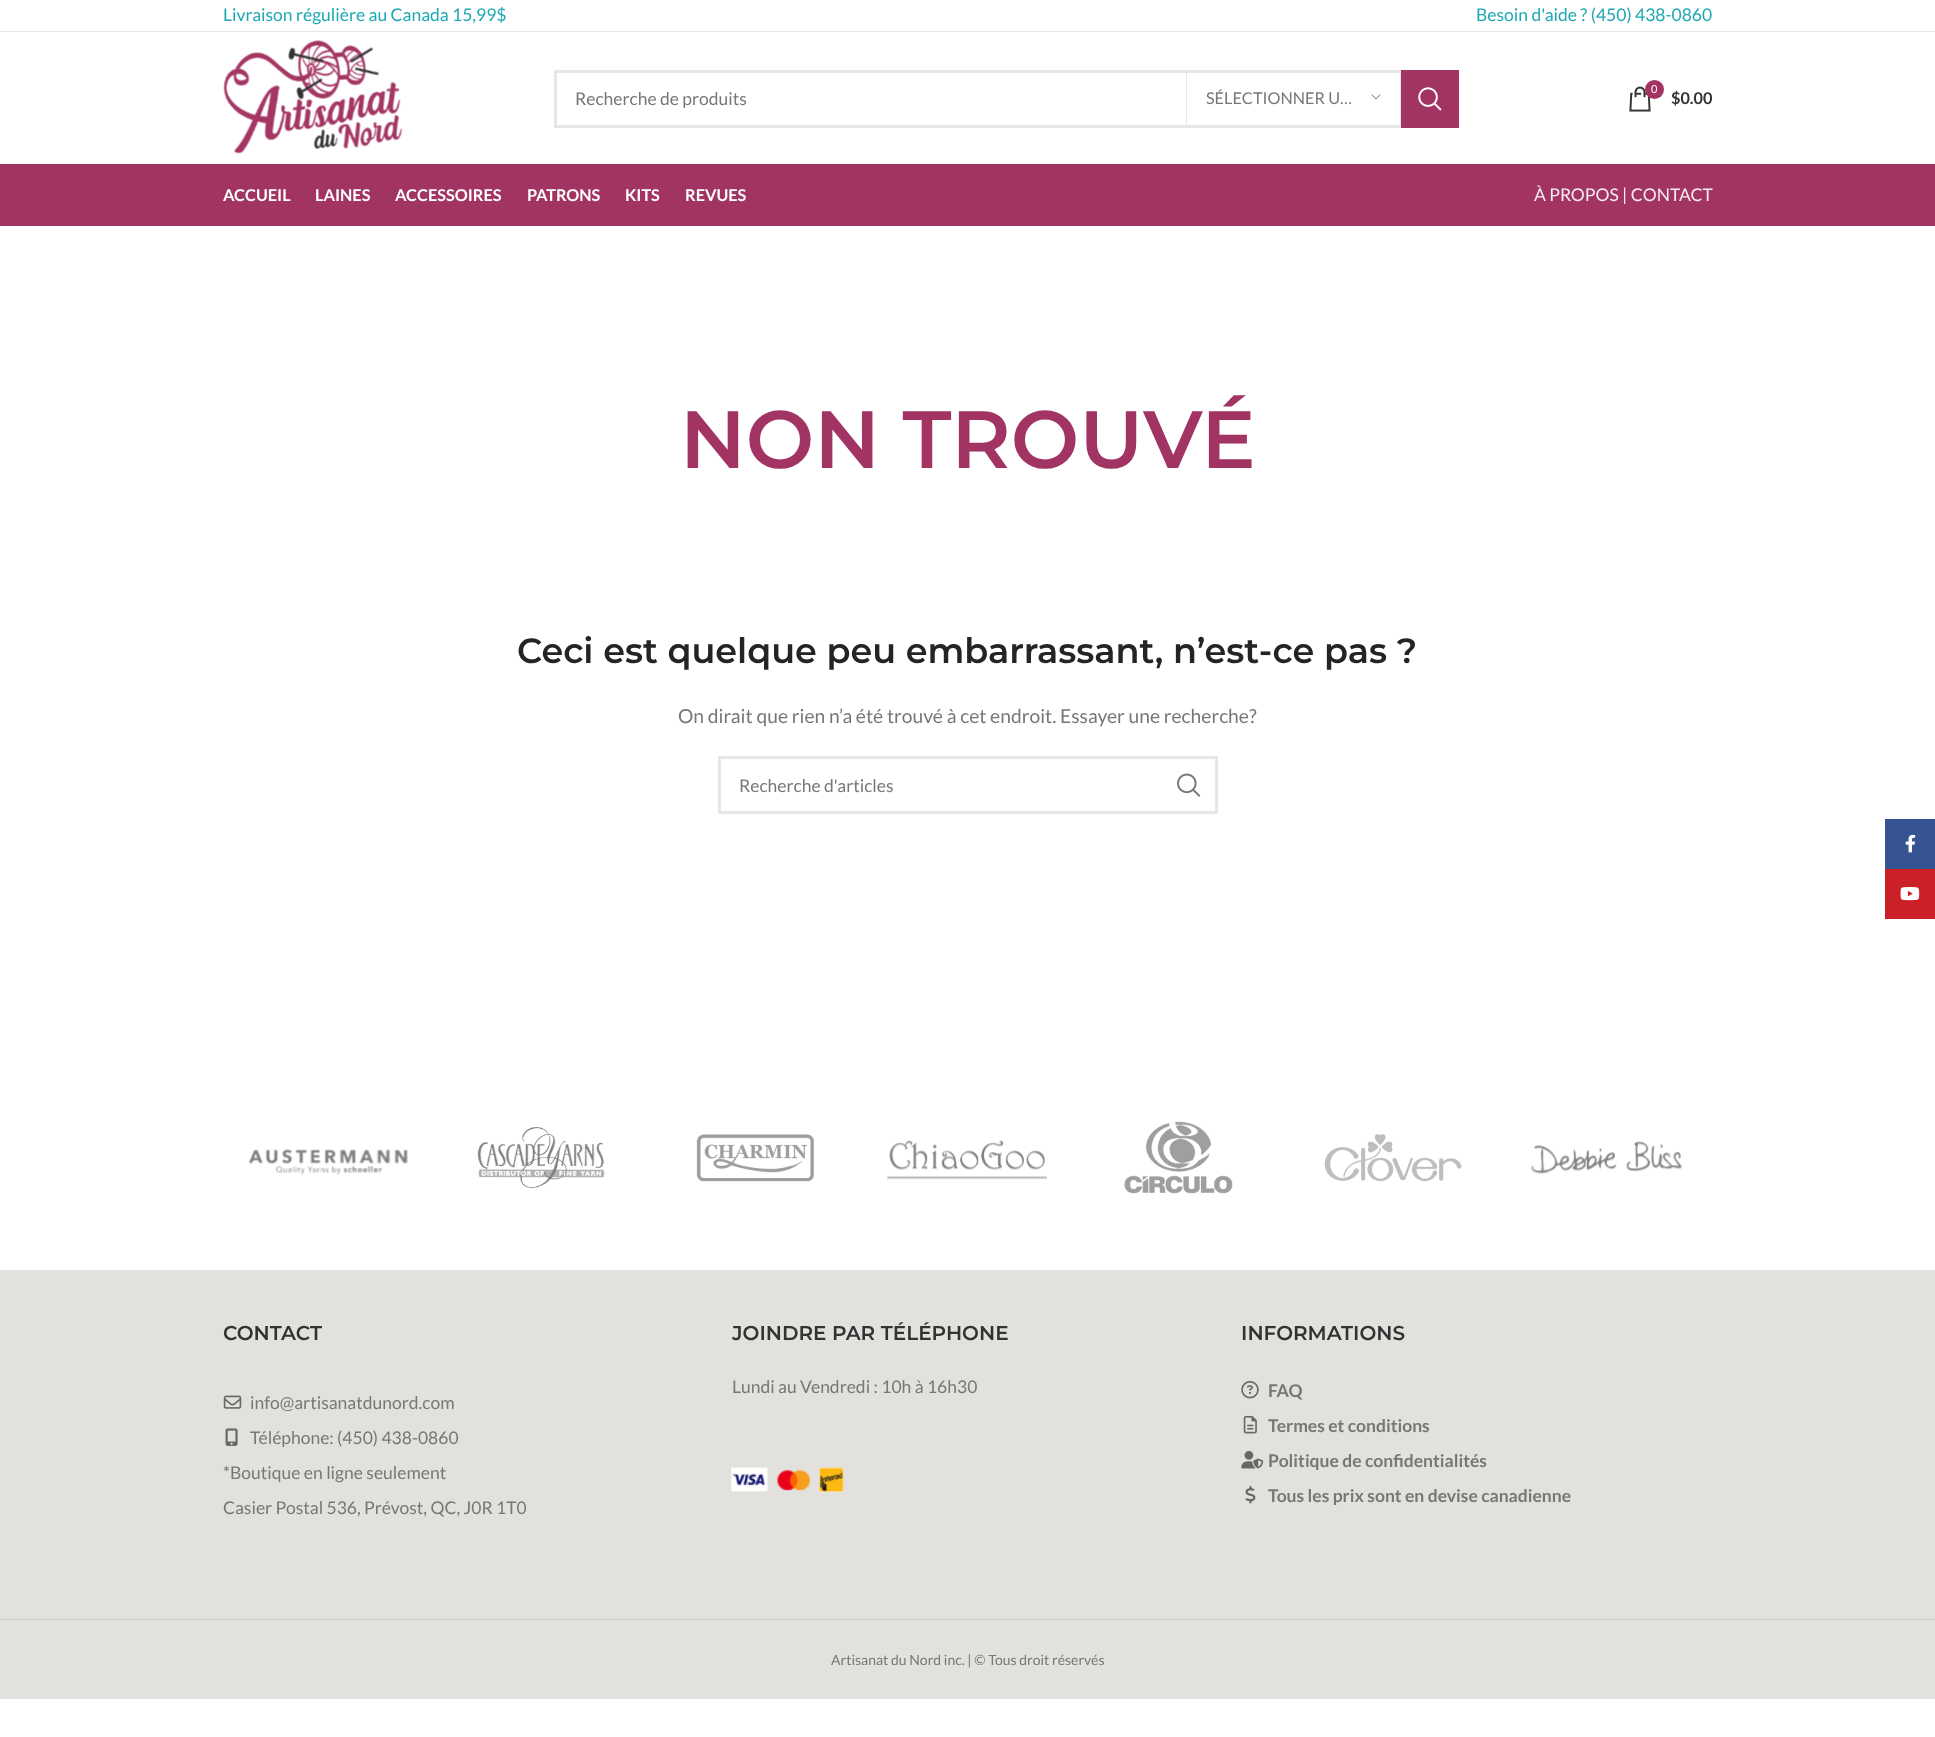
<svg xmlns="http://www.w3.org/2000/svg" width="1935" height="1737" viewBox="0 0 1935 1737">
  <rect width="100%" height="100%" fill="#ffffff"/>
  <rect x="0" y="31" width="1935" height="1" fill="#e6e6e4"/>
  <text x="223" y="21" font-family="Lato" font-size="17.5" fill="#1ea8b2">Livraison régulière au Canada 15,99$</text>
  <text x="1476" y="21" font-family="Lato" font-size="17.5" fill="#1ea8b2">Besoin d'aide ? (450) 438-0860</text>
  <image x="223" y="40" width="180" height="114" href="img1.png"/>
  <rect x="555.5" y="71.5" width="902" height="55" fill="none" stroke="#e6e6e6" stroke-width="3"/>
  <text x="575" y="105" font-family="Lato" font-size="17.5" fill="#777777">Recherche de produits</text>
  <rect x="1400" y="73" width="1" height="52" fill="#e6e6e6"/>
  <rect x="1186" y="73" width="1" height="52" fill="#e6e6e6"/>
  <text x="1206" y="104" font-family="Lato" font-size="16.25" fill="#777777">SÉLECTIONNER U…</text>
  <image x="1371" y="94" width="10" height="6" href="img2.png"/>
  <rect x="1401" y="70" width="58" height="58" fill="#a23463"/>
  <image x="1418" y="87" width="24" height="24" href="img3.png"/>
  <image x="1629" y="86" width="22" height="26" href="img4.png"/>
  <circle cx="1654.5" cy="89.5" r="9.5" fill="#a23463"/>
  <text x="1651" y="93" font-family="Lato" font-size="11" fill="#ffffff">0</text>
  <text x="1671" y="104" font-family="Lato" font-size="16.25" font-weight="bold" fill="#333333">$0.00</text>
  <rect x="0" y="164" width="1935" height="62" fill="#a23463"/>
  <text x="223" y="201" font-family="Lato" font-size="16.25" font-weight="bold" fill="#ffffff">ACCUEIL</text>
  <text x="315" y="201" font-family="Lato" font-size="16.25" font-weight="bold" fill="#ffffff">LAINES</text>
  <text x="395" y="201" font-family="Lato" font-size="16.25" font-weight="bold" fill="#ffffff">ACCESSOIRES</text>
  <text x="527" y="201" font-family="Lato" font-size="16.25" font-weight="bold" fill="#ffffff">PATRONS</text>
  <text x="625" y="201" font-family="Lato" font-size="16.25" font-weight="bold" fill="#ffffff">KITS</text>
  <text x="685" y="201" font-family="Lato" font-size="16.25" font-weight="bold" fill="#ffffff">REVUES</text>
  <text x="1534" y="201" font-family="Lato" font-size="17.5" fill="#f6ebef">À PROPOS | CONTACT</text>
  <text x="680" y="468" font-family="Montserrat" font-size="81.25" font-weight="600" fill="#a23463">NON TROUVÉ</text>
  <text x="517" y="663" font-family="Montserrat" font-size="35" font-weight="600" fill="#242424">Ceci est quelque peu embarrassant, n’est-ce pas ?</text>
  <text x="678" y="723" font-family="Lato" font-size="19.25" fill="#777777">On dirait que rien n’a été trouvé à cet endroit. Essayer une recherche?</text>
  <rect x="719.5" y="757.5" width="497" height="55" fill="none" stroke="#e6e6e6" stroke-width="3"/>
  <text x="739" y="792" font-family="Lato" font-size="17.5" fill="#777777">Recherche d'articles</text>
  <image x="1177" y="773" width="24" height="24" href="img5.png"/>
  <image x="248" y="1149" width="160" height="26" href="img6.png"/>
  <image x="477" y="1127" width="128" height="61" href="img7.png"/>
  <image x="696" y="1134" width="118" height="48" href="img8.png"/>
  <image x="887" y="1140" width="160" height="40" href="img9.png"/>
  <image x="1124" y="1121" width="109" height="73" href="img10.png"/>
  <image x="1324" y="1134" width="138" height="48" href="img11.png"/>
  <image x="1531" y="1141" width="151" height="33" href="img12.png"/>
  <rect x="0" y="1270" width="1935" height="429" fill="#e3e1dd"/>
  <text x="223" y="1340" font-family="Montserrat" font-size="20" font-weight="600" fill="#333333">CONTACT</text>
  <image x="223" y="1395" width="19" height="14" href="img13.png"/>
  <text x="250" y="1409" font-family="Lato" font-size="17.5" fill="#777777">info@artisanatdunord.com</text>
  <image x="225" y="1428" width="13" height="18" href="img14.png"/>
  <text x="250" y="1444" font-family="Lato" font-size="17.5" fill="#777777">Téléphone: (450) 438-0860</text>
  <text x="223" y="1479" font-family="Lato" font-size="17.5" fill="#777777">*Boutique en ligne seulement</text>
  <text x="223" y="1514" font-family="Lato" font-size="17.5" fill="#777777">Casier Postal 536, Prévost, QC, J0R 1T0</text>
  <text x="732" y="1340" font-family="Montserrat" font-size="20" font-weight="600" fill="#333333">JOINDRE PAR TÉLÉPHONE</text>
  <text x="732" y="1393" font-family="Lato" font-size="17.5" fill="#777777">Lundi au Vendredi : 10h à 16h30</text>
  <image x="731" y="1467" width="113" height="26" href="img15.png"/>
  <text x="1241" y="1340" font-family="Montserrat" font-size="20" font-weight="600" fill="#333333">INFORMATIONS</text>
  <image x="1241" y="1381" width="18" height="18" href="img16.png"/>
  <text x="1268" y="1397" font-family="Lato" font-size="17.5" font-weight="bold" fill="#777777">FAQ</text>
  <image x="1243" y="1415" width="14" height="19" href="img17.png"/>
  <text x="1268" y="1432" font-family="Lato" font-size="17.5" font-weight="bold" fill="#777777">Termes et conditions</text>
  <image x="1241" y="1451" width="23" height="18" href="img18.png"/>
  <text x="1268" y="1467" font-family="Lato" font-size="17.5" font-weight="bold" fill="#777777">Politique de confidentialités</text>
  <image x="1245" y="1486" width="11" height="18" href="img19.png"/>
  <text x="1268" y="1502" font-family="Lato" font-size="17.5" font-weight="bold" fill="#777777">Tous les prix sont en devise canadienne</text>
  <rect x="0" y="1619" width="1935" height="1" fill="#cbc9c6"/>
  <text x="831" y="1665" font-family="Lato" font-size="14" fill="#777777">Artisanat du Nord inc. | © Tous droit réservés</text>
  <rect x="1885" y="819" width="50" height="50" fill="#365493"/>
  <image x="1905" y="834" width="11" height="19" href="img20.png"/>
  <rect x="1885" y="869" width="50" height="50" fill="#cb2027"/>
  <image x="1900" y="887" width="20" height="14" href="img21.png"/>
</svg>
